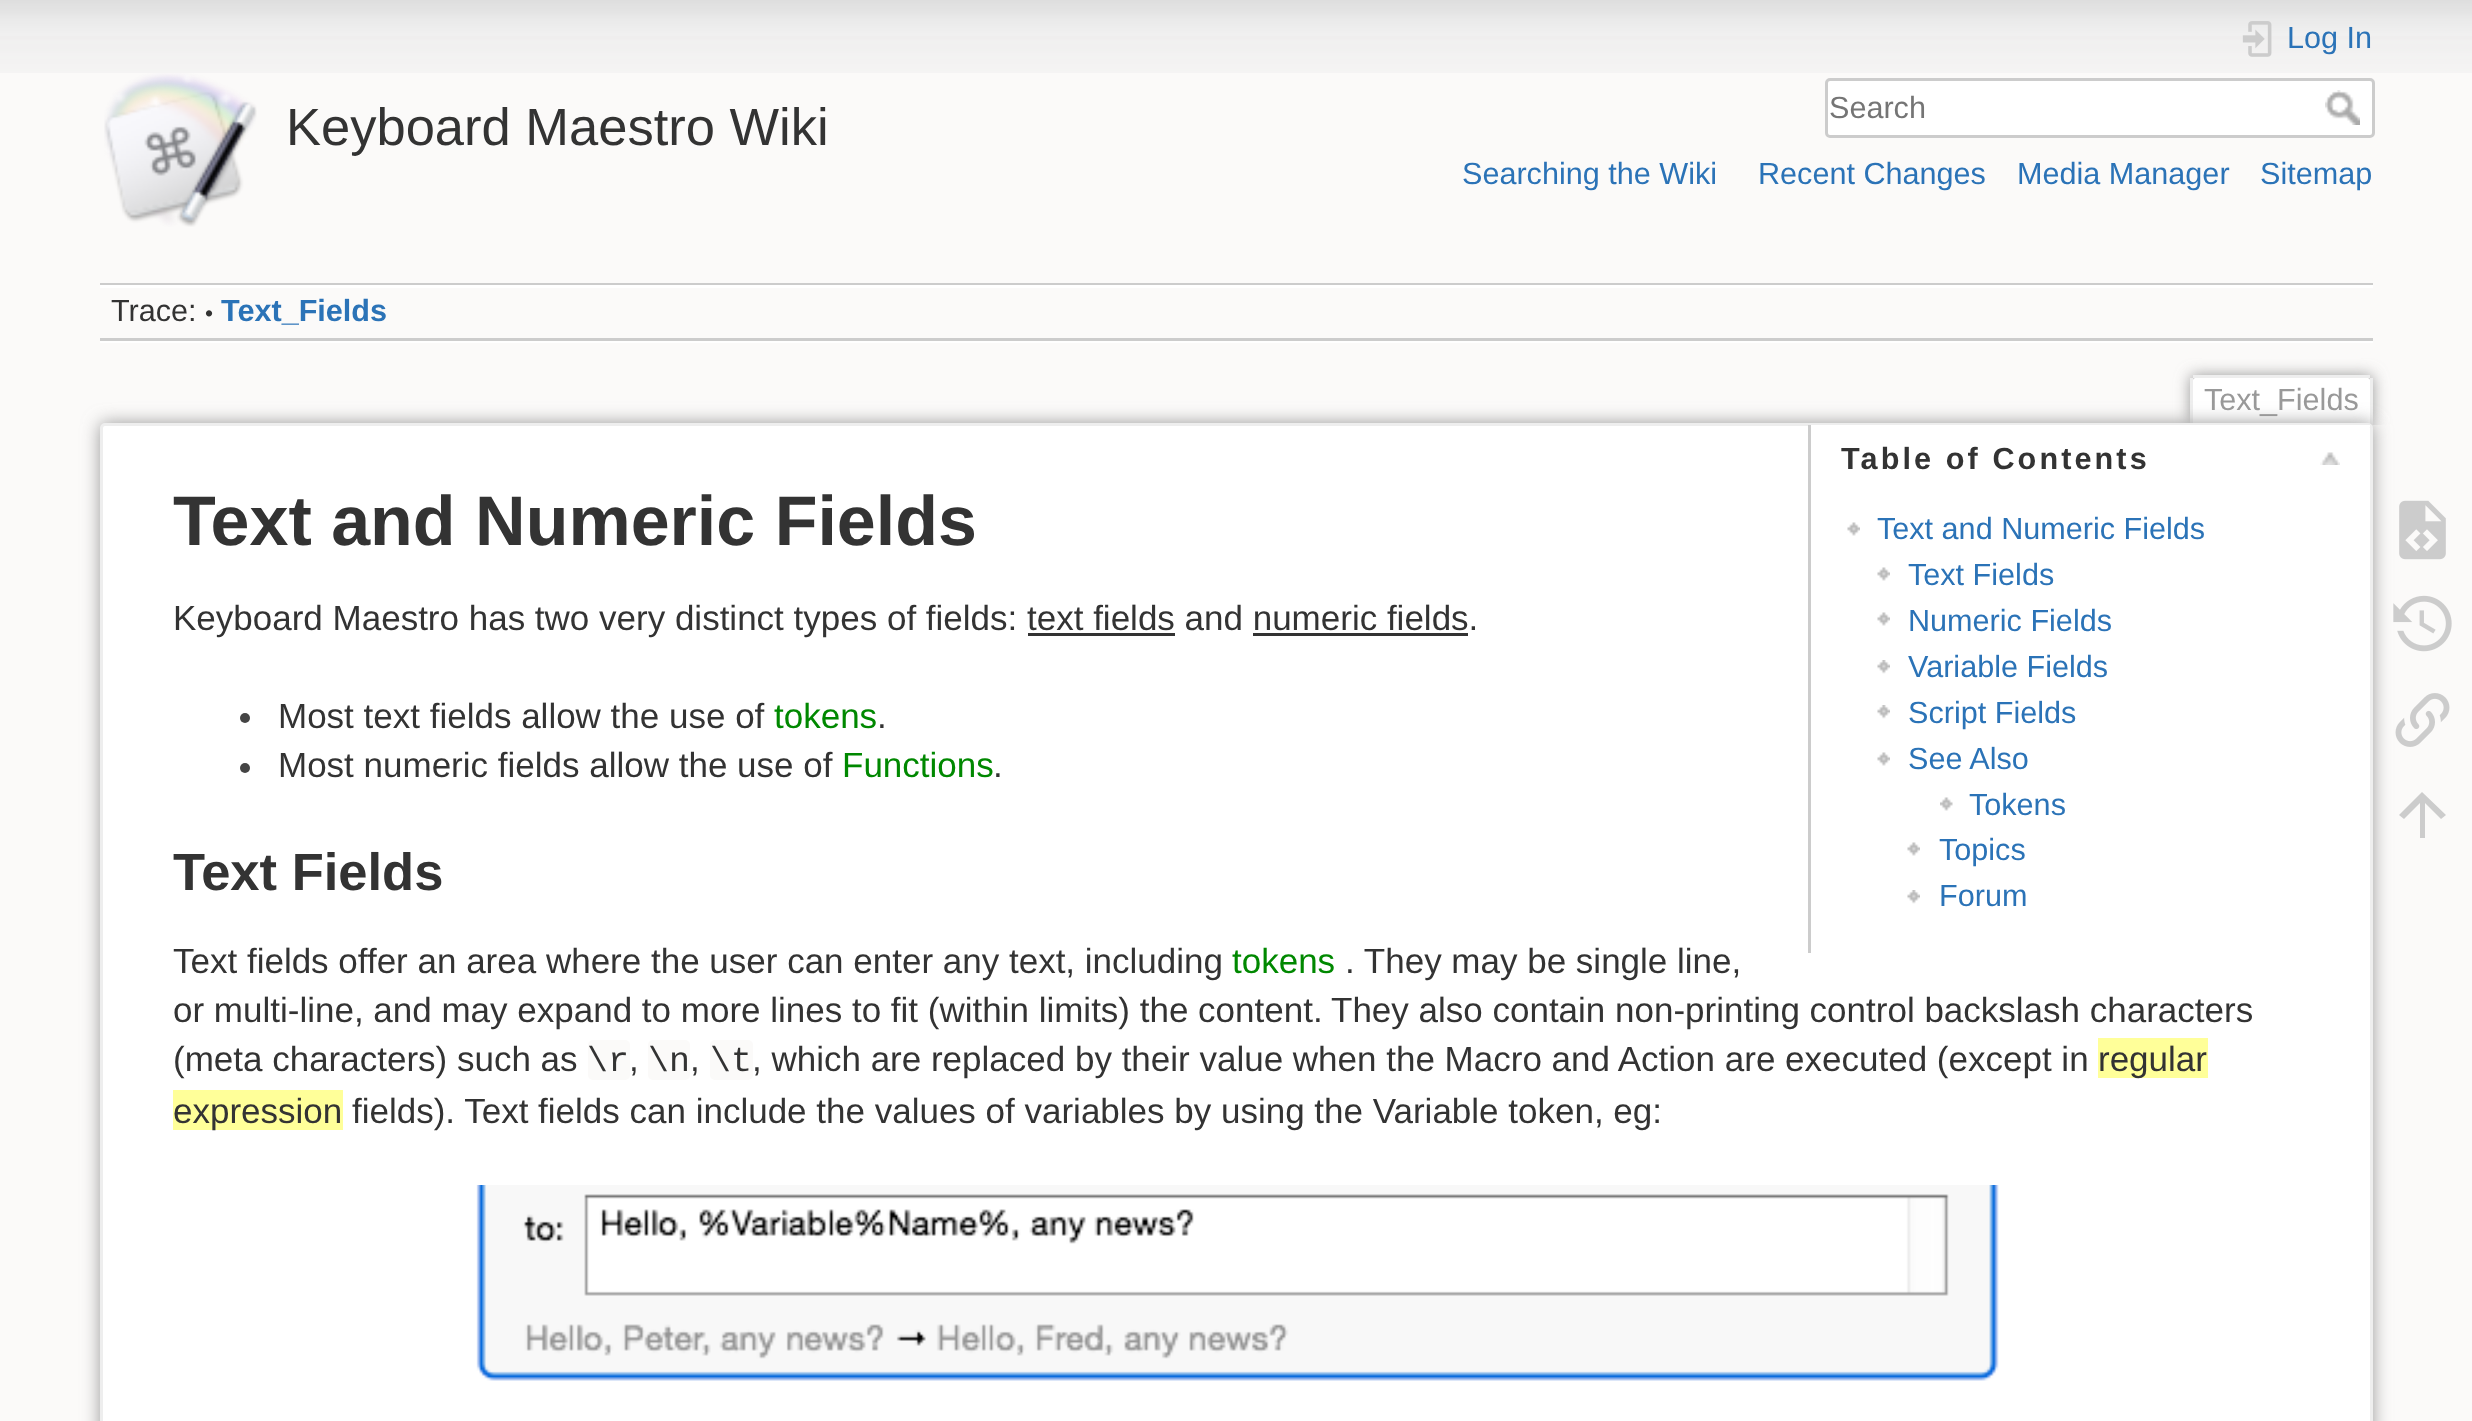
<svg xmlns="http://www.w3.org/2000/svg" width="2472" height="1421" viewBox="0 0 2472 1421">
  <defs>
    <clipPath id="clip1"><rect x="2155" y="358" width="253" height="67"/></clipPath>
    <filter id="blur1" x="-50%" y="-200%" width="200%" height="500%"><feGaussianBlur stdDeviation="7.5"/></filter>
    <filter id="blur2" x="-50%" y="-200%" width="200%" height="500%"><feGaussianBlur stdDeviation="9"/></filter>
  </defs>
  <rect width="100%" height="100%" fill="#fbfaf9"/>
  <image x="0" y="0" width="2472" height="73" href="img1.png"/>
  <image x="104" y="73" width="153" height="154" href="img2.png"/>
  <text x="286" y="145" font-family="Liberation Sans" font-size="52.5" fill="#333333">Keyboard Maestro Wiki</text>
  <image x="2242" y="21" width="30" height="36" href="img3.png"/>
  <text x="2287" y="48" font-family="Liberation Sans" font-size="30.6" fill="#2b73b7">Log In</text>
  <rect x="1826.5" y="79.5" width="547" height="57" rx="3.5" fill="#ffffff" stroke="#cccccc" stroke-width="3"/>
  <text x="1829" y="118" font-family="Liberation Sans" font-size="30.6" fill="#757575">Search</text>
  <image x="2325" y="90" width="35" height="35" href="img4.png"/>
  <text x="1462" y="184" font-family="Liberation Sans" font-size="30.6" fill="#2b73b7">Searching the Wiki</text>
  <text x="1758" y="184" font-family="Liberation Sans" font-size="30.6" fill="#2b73b7">Recent Changes</text>
  <text x="2017" y="184" font-family="Liberation Sans" font-size="30.6" fill="#2b73b7">Media Manager</text>
  <text x="2260" y="184" font-family="Liberation Sans" font-size="30.6" fill="#2b73b7">Sitemap</text>
  <rect x="100" y="283" width="2273" height="2" fill="#cccccc"/>
  <rect x="100" y="341" width="2273" height="2" fill="#ffffff"/>
  <rect x="100" y="285" width="2273" height="3" fill="#ffffff"/>
  <rect x="100" y="338" width="2273" height="3" fill="#cccccc"/>
  <text x="111" y="321" font-family="Liberation Sans" font-size="30.6" fill="#333333">Trace:</text>
  <text x="205" y="321" font-family="Liberation Sans" font-size="23" fill="#333333">•</text>
  <text x="221" y="321" font-family="Liberation Sans" font-size="30.6" font-weight="bold" fill="#2b73b7">Text_Fields</text>
  <g clip-path="url(#clip1)">
    <rect x="2190" y="375" width="183" height="50" rx="5" fill="#999999" filter="url(#blur1)"/>
  </g>
  <path d="M2195.5 378H2367.5C2369 378 2370 379 2370 380.5V425H2193V380.5C2193 379 2194 378 2195.5 378Z" fill="#ffffff"/>
  <rect x="2193" y="375" width="177" height="3" fill="#eeeeee"/>
  <rect x="2370" y="378" width="3" height="47" fill="#eeeeee"/>
  <rect x="2190" y="378" width="3" height="47" fill="#eeeeee"/>
  <text x="2204" y="410" font-family="Liberation Sans" font-size="30.6" fill="#999999">Text_Fields</text>
  <rect x="100" y="423" width="2273" height="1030" rx="5" fill="#999999" filter="url(#blur2)"/>
  <rect x="101.5" y="424.5" width="2270" height="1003" rx="3.5" fill="#ffffff" stroke="#eeeeee" stroke-width="3"/>
  <text x="173" y="545" font-family="Liberation Sans" font-size="70" font-weight="bold" fill="#333333">Text and Numeric Fields</text>
  <rect x="1811" y="425" width="559" height="2" fill="#ffffff"/>
  <rect x="1808" y="425" width="3" height="528" fill="#cccccc"/>
  <text x="1841" y="469" font-family="Liberation Sans" font-size="30.6" font-weight="bold" letter-spacing="3.1" fill="#333333">Table of Contents</text>
  <image x="2320" y="452" width="20" height="13" href="img5.png"/>
  <image x="1847" y="522" width="13" height="14" href="img6.png"/>
  <text x="1877" y="539" font-family="Liberation Sans" font-size="30.6" fill="#2b73b7">Text and Numeric Fields</text>
  <image x="1877" y="567" width="13" height="14" href="img7.png"/>
  <text x="1908" y="585" font-family="Liberation Sans" font-size="30.6" fill="#2b73b7">Text Fields</text>
  <image x="1877" y="612" width="13" height="14" href="img7.png"/>
  <text x="1908" y="631" font-family="Liberation Sans" font-size="30.6" fill="#2b73b7">Numeric Fields</text>
  <image x="1877" y="660" width="13" height="14" href="img8.png"/>
  <text x="1908" y="677" font-family="Liberation Sans" font-size="30.6" fill="#2b73b7">Variable Fields</text>
  <image x="1877" y="705" width="13" height="14" href="img8.png"/>
  <text x="1908" y="723" font-family="Liberation Sans" font-size="30.6" fill="#2b73b7">Script Fields</text>
  <image x="1877" y="752" width="13" height="14" href="img7.png"/>
  <text x="1908" y="769" font-family="Liberation Sans" font-size="30.6" fill="#2b73b7">See Also</text>
  <image x="1940" y="797" width="13" height="14" href="img9.png"/>
  <text x="1969" y="815" font-family="Liberation Sans" font-size="30.6" fill="#2b73b7">Tokens</text>
  <image x="1907" y="842" width="13" height="14" href="img7.png"/>
  <text x="1939" y="860" font-family="Liberation Sans" font-size="30.6" fill="#2b73b7">Topics</text>
  <image x="1907" y="890" width="13" height="14" href="img8.png"/>
  <text x="1939" y="906" font-family="Liberation Sans" font-size="30.6" fill="#2b73b7">Forum</text>
  <text x="173" y="630" font-family="Liberation Sans" font-size="35" fill="#333333">Keyboard Maestro has two very distinct types of fields: text fields and numeric fields.</text>
  <rect x="1028" y="633" width="147" height="3" fill="#333333"/>
  <rect x="1253" y="633" width="215" height="3" fill="#333333"/>
  <circle cx="245" cy="718" r="5" fill="#444444"/>
  <text x="278" y="728" font-family="Liberation Sans" font-size="35" fill="#333333">Most text fields allow the use of</text>
  <text x="774" y="728" font-family="Liberation Sans" font-size="35" fill="#008800">tokens</text>
  <text x="877" y="728" font-family="Liberation Sans" font-size="35" fill="#333333">.</text>
  <circle cx="245" cy="768" r="5" fill="#444444"/>
  <text x="278" y="777" font-family="Liberation Sans" font-size="35" fill="#333333">Most numeric fields allow the use of</text>
  <text x="842" y="777" font-family="Liberation Sans" font-size="35" fill="#008800">Functions</text>
  <text x="993" y="777" font-family="Liberation Sans" font-size="35" fill="#333333">.</text>
  <text x="173" y="890" font-family="Liberation Sans" font-size="52.5" font-weight="bold" fill="#333333">Text Fields</text>
  <text x="173" y="973" font-family="Liberation Sans" font-size="35" fill="#333333">Text fields offer an area where the user can enter any text, including</text>
  <text x="1232" y="973" font-family="Liberation Sans" font-size="35" fill="#008800">tokens</text>
  <text x="1345" y="973" font-family="Liberation Sans" font-size="35" fill="#333333">. They may be single line,</text>
  <text x="173" y="1022" font-family="Liberation Sans" font-size="35" fill="#333333">or multi-line, and may expand to more lines to fit (within limits) the content.</text>
  <text x="1331" y="1022" font-family="Liberation Sans" font-size="35" fill="#333333">They also contain non-printing control backslash characters</text>
  <text x="173" y="1071" font-family="Liberation Sans" font-size="35" fill="#333333">(meta characters) such as</text>
  <rect x="588" y="1040" width="42" height="40" rx="5" fill="#fbfaf9"/>
  <text x="587" y="1071" font-family="Liberation Mono" font-size="35" fill="#333333">\r</text>
  <text x="629" y="1071" font-family="Liberation Sans" font-size="35" fill="#333333">,</text>
  <rect x="648" y="1040" width="42" height="40" rx="5" fill="#fbfaf9"/>
  <text x="648" y="1071" font-family="Liberation Mono" font-size="35" fill="#333333">\n</text>
  <text x="690" y="1071" font-family="Liberation Sans" font-size="35" fill="#333333">,</text>
  <rect x="710" y="1040" width="43" height="40" rx="5" fill="#fbfaf9"/>
  <text x="710" y="1071" font-family="Liberation Mono" font-size="35" fill="#333333">\t</text>
  <text x="752" y="1071" font-family="Liberation Sans" font-size="35" fill="#333333">, which are replaced by their value when the Macro and Action are executed (except in</text>
  <rect x="2098" y="1038" width="110" height="40" fill="#ffff99"/>
  <text x="2098" y="1071" font-family="Liberation Sans" font-size="35" fill="#333333">regular</text>
  <rect x="173" y="1090" width="170" height="40" fill="#ffff99"/>
  <text x="173" y="1123" font-family="Liberation Sans" font-size="35" fill="#333333">expression fields). Text fields can include the values of variables by using the Variable token, eg:</text>
  <image x="476" y="1185" width="1523" height="196" href="img10.png"/>
  <image x="2399" y="500" width="47" height="60" href="img11.png"/>
  <image x="2393" y="595" width="59" height="57" href="img12.png"/>
  <image x="2395" y="693" width="55" height="54" href="img13.png"/>
  <path d="M2425 838H2420V803L2404 819L2399 815L2422 792L2446 815L2441 819L2425 803Z" fill="#cccccc"/>
</svg>
